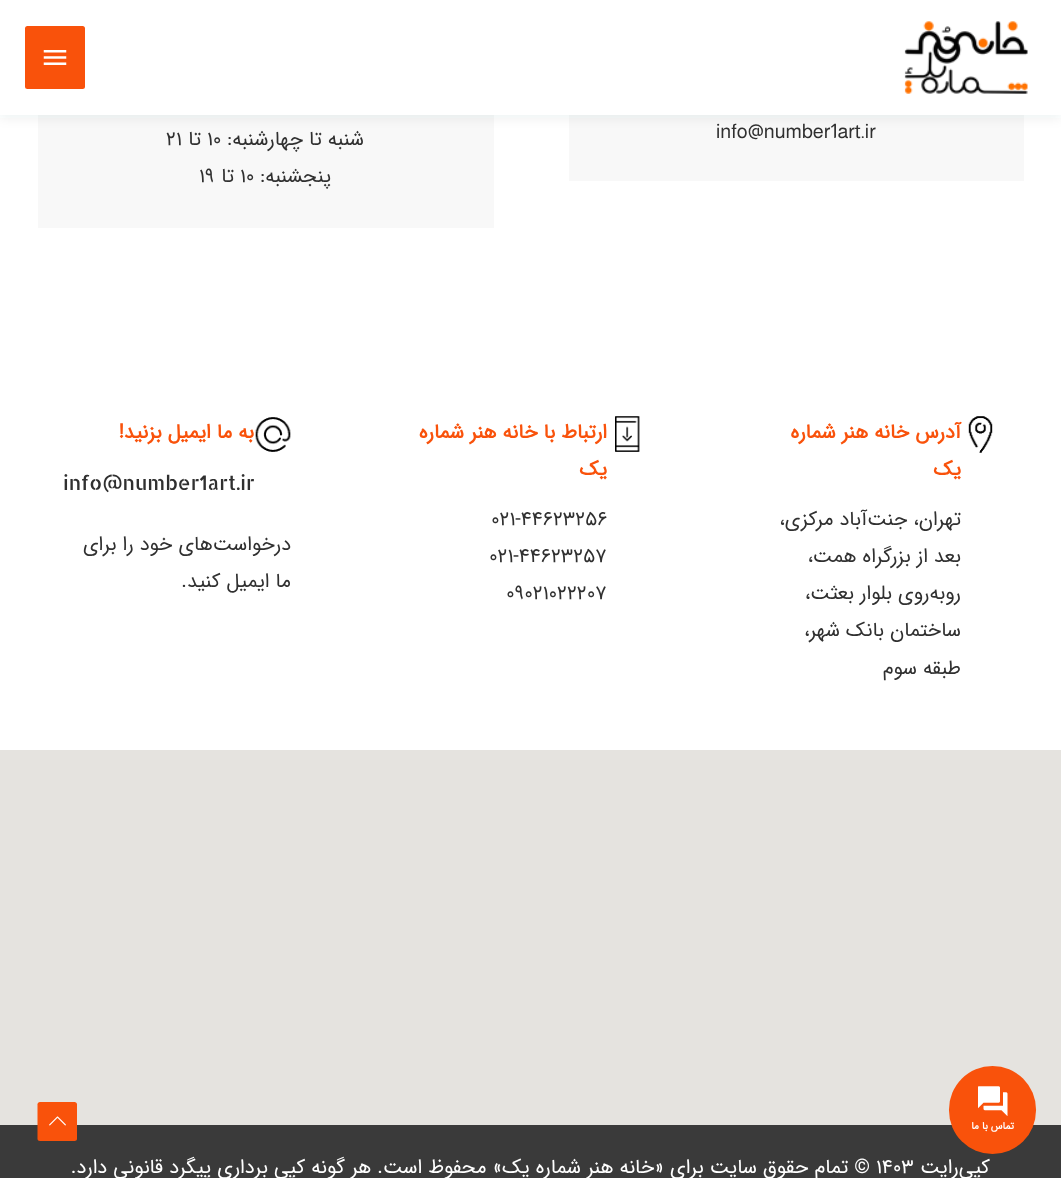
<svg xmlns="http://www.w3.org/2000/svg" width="1061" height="1178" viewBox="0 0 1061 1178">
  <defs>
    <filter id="blur1" x="-50%" y="-200%" width="200%" height="500%"><feGaussianBlur stdDeviation="6"/></filter>
  </defs>
  <rect width="100%" height="100%" fill="#ffffff"/>
  <rect x="0" y="1125" width="1061" height="53" fill="#3a3a3a"/>
  <rect x="0" y="750" width="1061" height="375" fill="#e5e3df"/>
  <rect x="949" y="1066" width="87" height="88" rx="43.5" fill="#f9520b"/>
  <image x="978" y="1086" width="30" height="30" href="img1.png"/>
  <text x="1014" y="1129" font-family="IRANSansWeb" font-size="10" font-weight="bold" direction="rtl" fill="#ffffff">تماس با ما</text>
  <rect x="569" y="115" width="455" height="66" fill="#f8f8f8"/>
  <rect x="38" y="115" width="456" height="113" fill="#f8f8f8"/>
  <rect x="0" y="3" width="1061" height="115" fill="#243242" fill-opacity="0.07" filter="url(#blur1)"/>
  <rect x="0" y="0" width="1061" height="115" fill="#ffffff"/>
  <image x="904" y="21" width="124" height="73" href="img2.png"/>
  <rect x="25" y="26" width="60" height="63" rx="2.5" fill="#f9520b"/>
  <image x="43" y="50" width="24" height="15" href="img3.png"/>
  <text x="716" y="138" font-family="Almarai" font-size="20" fill="#303030">info@number1art.ir</text>
  <text x="364" y="145" font-family="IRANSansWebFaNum" font-size="20" direction="rtl" fill="#303030">شنبه تا چهارشنبه:</text>
  <text x="207" y="145" font-family="IRANSansWebFaNum" font-size="20" fill="#303030">10</text>
  <text x="201" y="145" font-family="IRANSansWebFaNum" font-size="20" direction="rtl" fill="#303030">تا</text>
  <text x="166" y="145" font-family="IRANSansWebFaNum" font-size="20" fill="#303030">21</text>
  <text x="331" y="182" font-family="IRANSansWebFaNum" font-size="20" direction="rtl" fill="#303030">پنجشنبه:</text>
  <text x="240" y="182" font-family="IRANSansWebFaNum" font-size="20" fill="#303030">10</text>
  <text x="234" y="182" font-family="IRANSansWebFaNum" font-size="20" direction="rtl" fill="#303030">تا</text>
  <text x="199" y="182" font-family="IRANSansWebFaNum" font-size="20" fill="#303030">19</text>
  <image x="968" y="416" width="25" height="37" href="img4.png"/>
  <text x="961" y="438" font-family="IRANSansWebFaNum" font-size="20" font-weight="bold" direction="rtl" fill="#f9520b">آدرس خانه هنر شماره</text>
  <text x="961" y="475" font-family="IRANSansWebFaNum" font-size="20" font-weight="bold" direction="rtl" fill="#f9520b">یک</text>
  <text x="961" y="525" font-family="IRANSansWebFaNum" font-size="20" direction="rtl" fill="#303030">تهران، جنت‌آ‌باد مرکزی،</text>
  <text x="961" y="562" font-family="IRANSansWebFaNum" font-size="20" direction="rtl" fill="#303030">بعد از بزرگراه همت،</text>
  <text x="961" y="599" font-family="IRANSansWebFaNum" font-size="20" direction="rtl" fill="#303030">روبه‌روی بلوار بعثت،</text>
  <text x="961" y="636" font-family="IRANSansWebFaNum" font-size="20" direction="rtl" fill="#303030">ساختمان بانک شهر،</text>
  <text x="961" y="674" font-family="IRANSansWebFaNum" font-size="20" direction="rtl" fill="#303030">طبقه سوم</text>
  <image x="615" y="416" width="25" height="36" href="img5.png"/>
  <text x="607" y="438" font-family="IRANSansWebFaNum" font-size="20" font-weight="bold" direction="rtl" fill="#f9520b">ارتباط با خانه هنر شماره</text>
  <text x="607" y="475" font-family="IRANSansWebFaNum" font-size="20" font-weight="bold" direction="rtl" fill="#f9520b">یک</text>
  <text x="491" y="525" font-family="IRANSansWebFaNum" font-size="20" fill="#303030">021-44623256</text>
  <text x="489" y="562" font-family="IRANSansWebFaNum" font-size="20" fill="#303030">021-44623257</text>
  <text x="506" y="599" font-family="IRANSansWebFaNum" font-size="20" fill="#303030">09021022207</text>
  <image x="255" y="417" width="36" height="35" href="img6.png"/>
  <text x="254" y="438" font-family="IRANSansWebFaNum" font-size="20" font-weight="bold" direction="rtl" fill="#f9520b">به ما ایمیل بزنید!</text>
  <text x="63" y="490" font-family="Allerta Stencil" font-size="20" fill="#303030">info@number1art.ir</text>
  <text x="291" y="550" font-family="IRANSansWebFaNum" font-size="20" direction="rtl" fill="#303030">درخواست‌های خود را برای</text>
  <text x="291" y="587" font-family="IRANSansWebFaNum" font-size="20" direction="rtl" fill="#303030">ما ایمیل کنید.</text>
  <text x="990" y="1173" font-family="IRANSansWebFaNum" font-size="20" direction="rtl" fill="#ffffff">کپی‌رایت</text>
  <text x="876" y="1173" font-family="IRANSansWebFaNum" font-size="20" fill="#ffffff">1403</text>
  <text x="870" y="1173" font-family="IRANSansWebFaNum" font-size="20" direction="rtl" fill="#ffffff">© تمام حقوق سایت برای «خانه هنر شماره یک» محفوظ است. هر گونه کپی برداری پیگرد قانونی دارد.</text>
  <path d="M74.5 1141H40C38.5 1141 37.5 1140 37.5 1139V1104.5C37.5 1103 38.5 1102 40 1102H74.5C76 1102 77 1103 77 1104.5V1139C77 1140 76 1141 74.5 1141Z" fill="#f9520b"/>
  <image x="49" y="1116" width="17" height="10" href="img7.png"/>
</svg>
